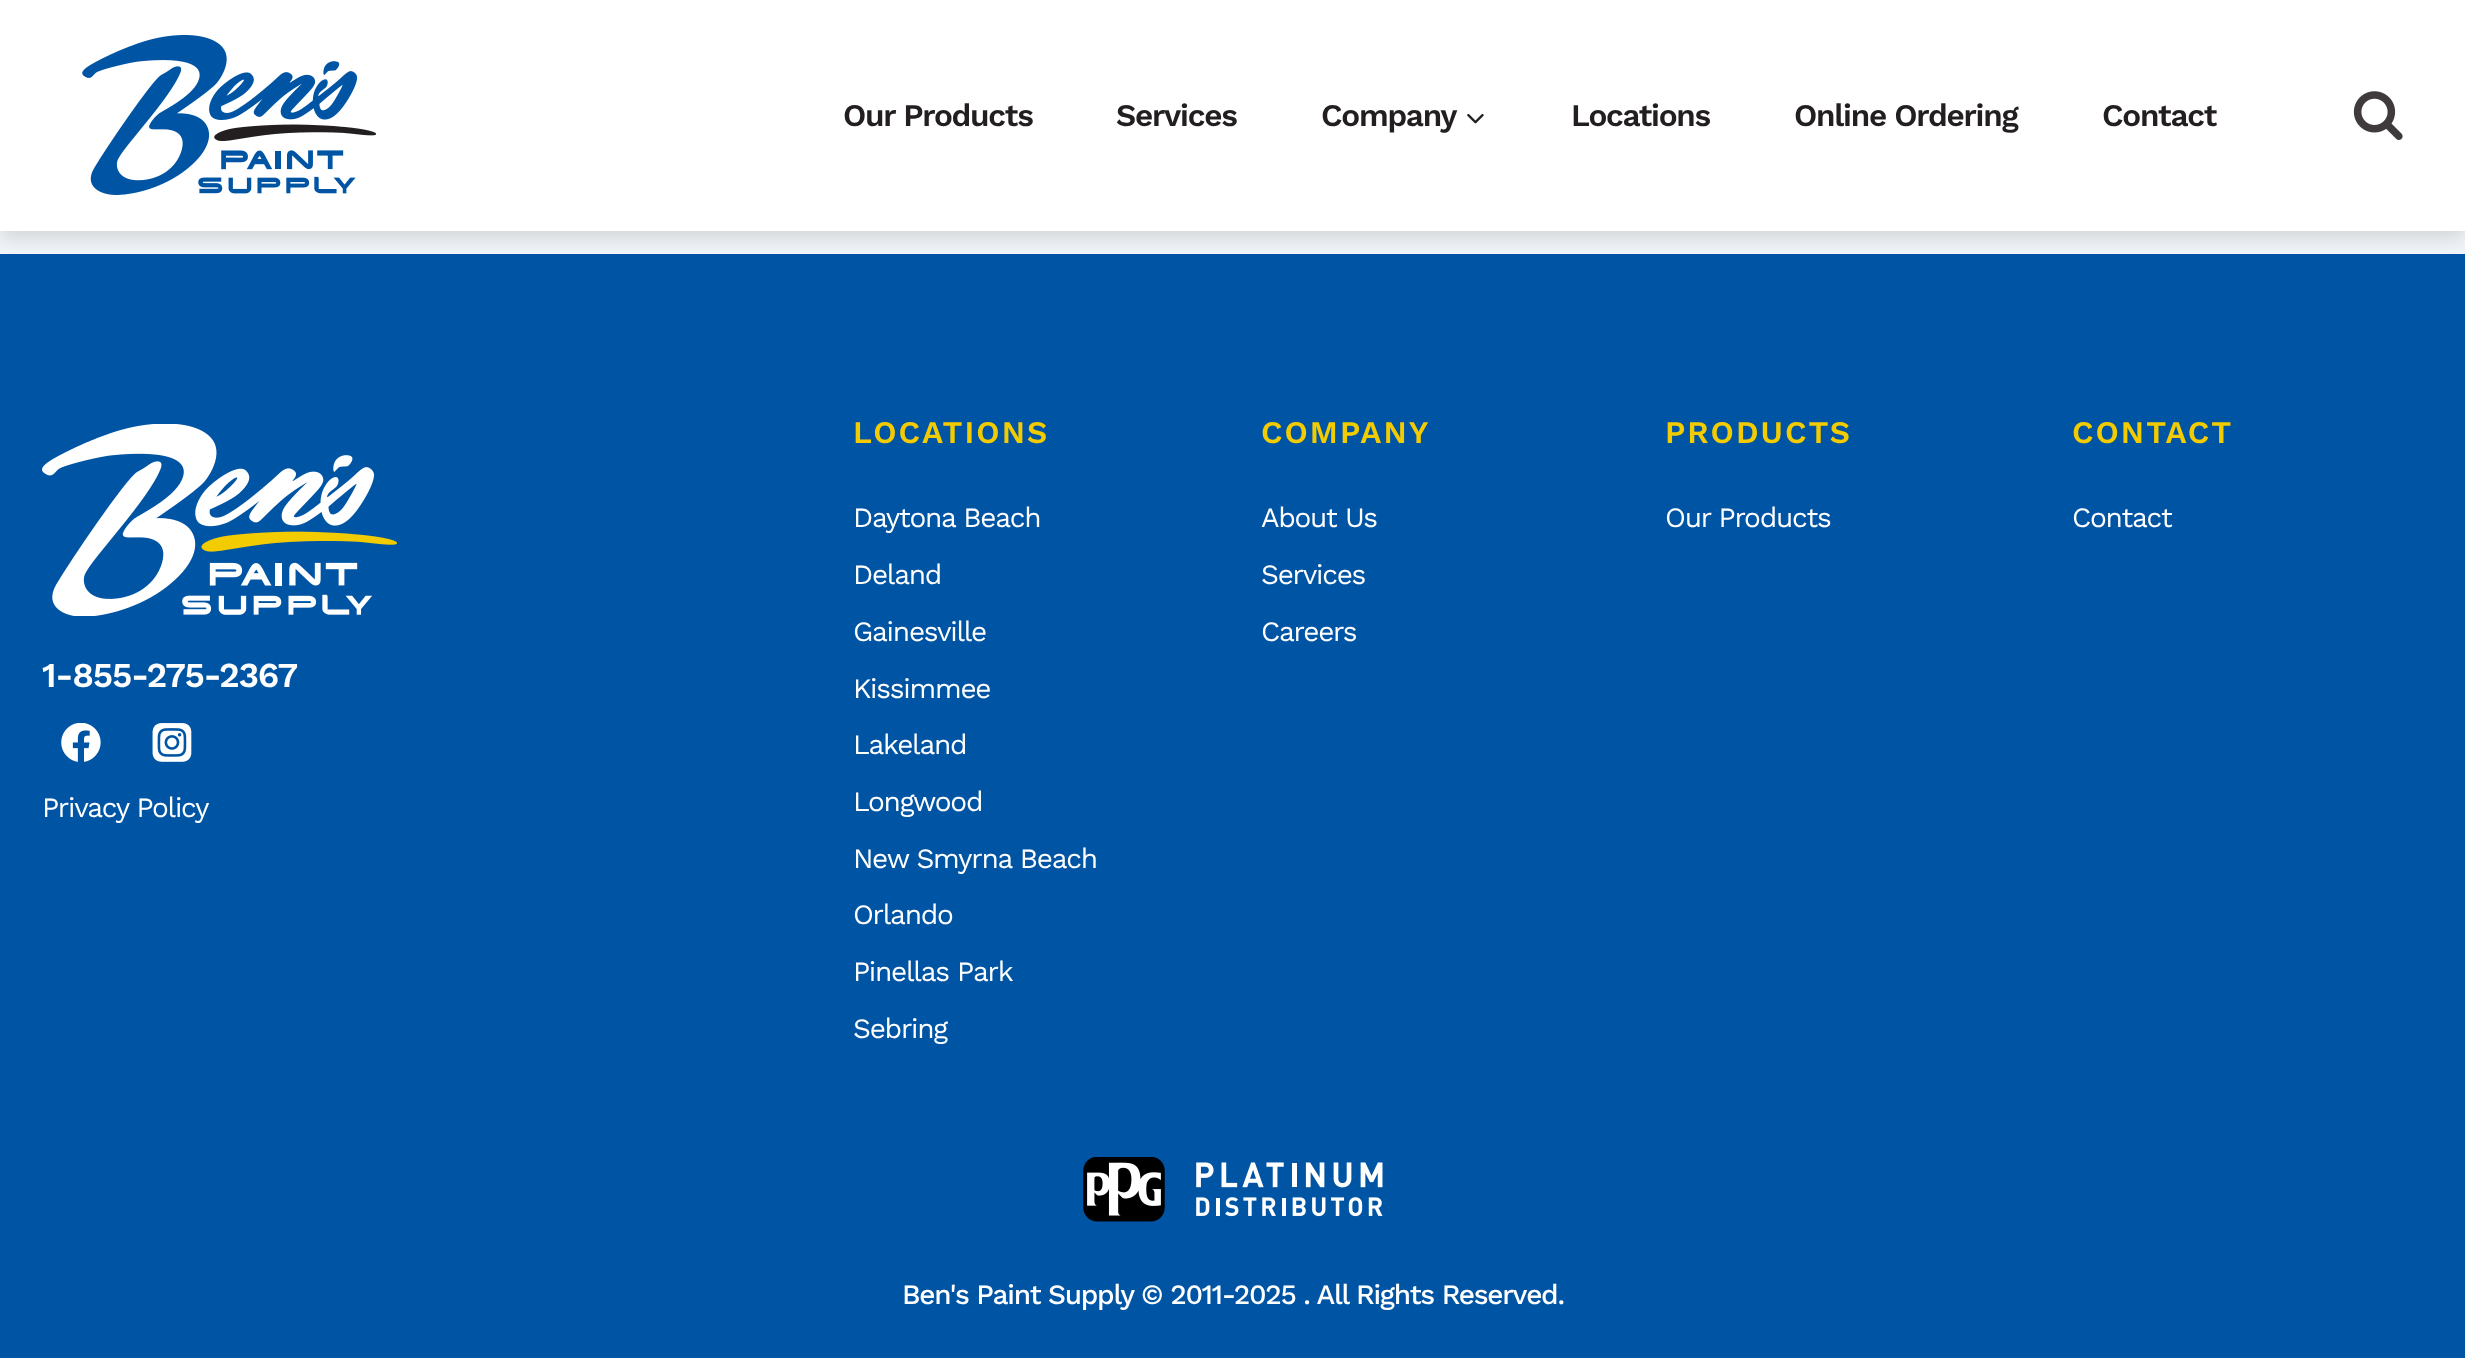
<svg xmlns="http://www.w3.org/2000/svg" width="2465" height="1358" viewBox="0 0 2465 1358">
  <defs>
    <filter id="blur1" x="-50%" y="-200%" width="200%" height="500%"><feGaussianBlur stdDeviation="9"/></filter>
  </defs>
  <rect width="100%" height="100%" fill="#f2f6fa"/>
  <rect x="0" y="254" width="2465" height="1104" fill="#0054a4"/>
  <rect x="0" y="9" width="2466" height="231" fill="#000000" fill-opacity="0.12" filter="url(#blur1)"/>
  <rect x="0" y="0" width="2465" height="231" fill="#ffffff"/>
  <image x="82" y="35" width="294" height="160" href="img1.png"/>
  <text x="843" y="126" font-family="Work Sans" font-size="31.5" font-weight="600" letter-spacing="-1.25" fill="#231f20">Our Products</text>
  <text x="1116" y="126" font-family="Work Sans" font-size="31.5" font-weight="600" letter-spacing="-1.25" fill="#231f20">Services</text>
  <text x="1321" y="126" font-family="Work Sans" font-size="31.5" font-weight="600" letter-spacing="-1.25" fill="#231f20">Company</text>
  <image x="1467" y="113" width="17" height="11" href="img2.png"/>
  <text x="1571" y="126" font-family="Work Sans" font-size="31.5" font-weight="600" letter-spacing="-1.25" fill="#231f20">Locations</text>
  <text x="1794" y="126" font-family="Work Sans" font-size="31.5" font-weight="600" letter-spacing="-1.25" fill="#231f20">Online Ordering</text>
  <text x="2102" y="126" font-family="Work Sans" font-size="31.5" font-weight="600" letter-spacing="-1.25" fill="#231f20">Contact</text>
  <image x="2353" y="91" width="50" height="49" href="img3.png"/>
  <text x="853" y="443" font-family="Work Sans" font-size="31.5" font-weight="600" letter-spacing="2" fill="#f2cb00">LOCATIONS</text>
  <text x="853" y="527" font-family="Work Sans" font-size="28" letter-spacing="-1.25" fill="#ffffff">Daytona Beach</text>
  <text x="853" y="584" font-family="Work Sans" font-size="28" letter-spacing="-1.25" fill="#ffffff">Deland</text>
  <text x="853" y="641" font-family="Work Sans" font-size="28" letter-spacing="-1.25" fill="#ffffff">Gainesville</text>
  <text x="853" y="698" font-family="Work Sans" font-size="28" letter-spacing="-1.25" fill="#ffffff">Kissimmee</text>
  <text x="853" y="754" font-family="Work Sans" font-size="28" letter-spacing="-1.25" fill="#ffffff">Lakeland</text>
  <text x="853" y="811" font-family="Work Sans" font-size="28" letter-spacing="-1.25" fill="#ffffff">Longwood</text>
  <text x="853" y="868" font-family="Work Sans" font-size="28" letter-spacing="-1.25" fill="#ffffff">New Smyrna Beach</text>
  <text x="853" y="924" font-family="Work Sans" font-size="28" letter-spacing="-1.25" fill="#ffffff">Orlando</text>
  <text x="853" y="981" font-family="Work Sans" font-size="28" letter-spacing="-1.25" fill="#ffffff">Pinellas Park</text>
  <text x="853" y="1038" font-family="Work Sans" font-size="28" letter-spacing="-1.25" fill="#ffffff">Sebring</text>
  <text x="1261" y="443" font-family="Work Sans" font-size="31.5" font-weight="600" letter-spacing="2" fill="#f2cb00">COMPANY</text>
  <text x="1261" y="527" font-family="Work Sans" font-size="28" letter-spacing="-1.25" fill="#ffffff">About Us</text>
  <text x="1261" y="584" font-family="Work Sans" font-size="28" letter-spacing="-1.25" fill="#ffffff">Services</text>
  <text x="1261" y="641" font-family="Work Sans" font-size="28" letter-spacing="-1.25" fill="#ffffff">Careers</text>
  <text x="1665" y="443" font-family="Work Sans" font-size="31.5" font-weight="600" letter-spacing="2" fill="#f2cb00">PRODUCTS</text>
  <text x="1665" y="527" font-family="Work Sans" font-size="28" letter-spacing="-1.25" fill="#ffffff">Our Products</text>
  <text x="2072" y="443" font-family="Work Sans" font-size="31.5" font-weight="600" letter-spacing="2" fill="#f2cb00">CONTACT</text>
  <text x="2072" y="527" font-family="Work Sans" font-size="28" letter-spacing="-1.25" fill="#ffffff">Contact</text>
  <image x="42" y="424" width="355" height="192" href="img4.png"/>
  <text x="42" y="687" font-family="Work Sans" font-size="35" font-weight="600" letter-spacing="-1.25" fill="#ffffff">1-855-275-2367</text>
  <image x="61" y="723" width="40" height="39" href="img5.png"/>
  <image x="152" y="723" width="40" height="39" href="img6.png"/>
  <text x="42" y="817" font-family="Work Sans" font-size="28" letter-spacing="-1.25" fill="#ffffff">Privacy Policy</text>
  <image x="1083" y="1157" width="300" height="65" href="img7.png"/>
  <text x="902" y="1304" font-family="Work Sans" font-size="28" font-weight="500" letter-spacing="-1.25" fill="#ffffff">Ben's Paint Supply © 2011-2025 . All Rights Reserved.</text>
</svg>
